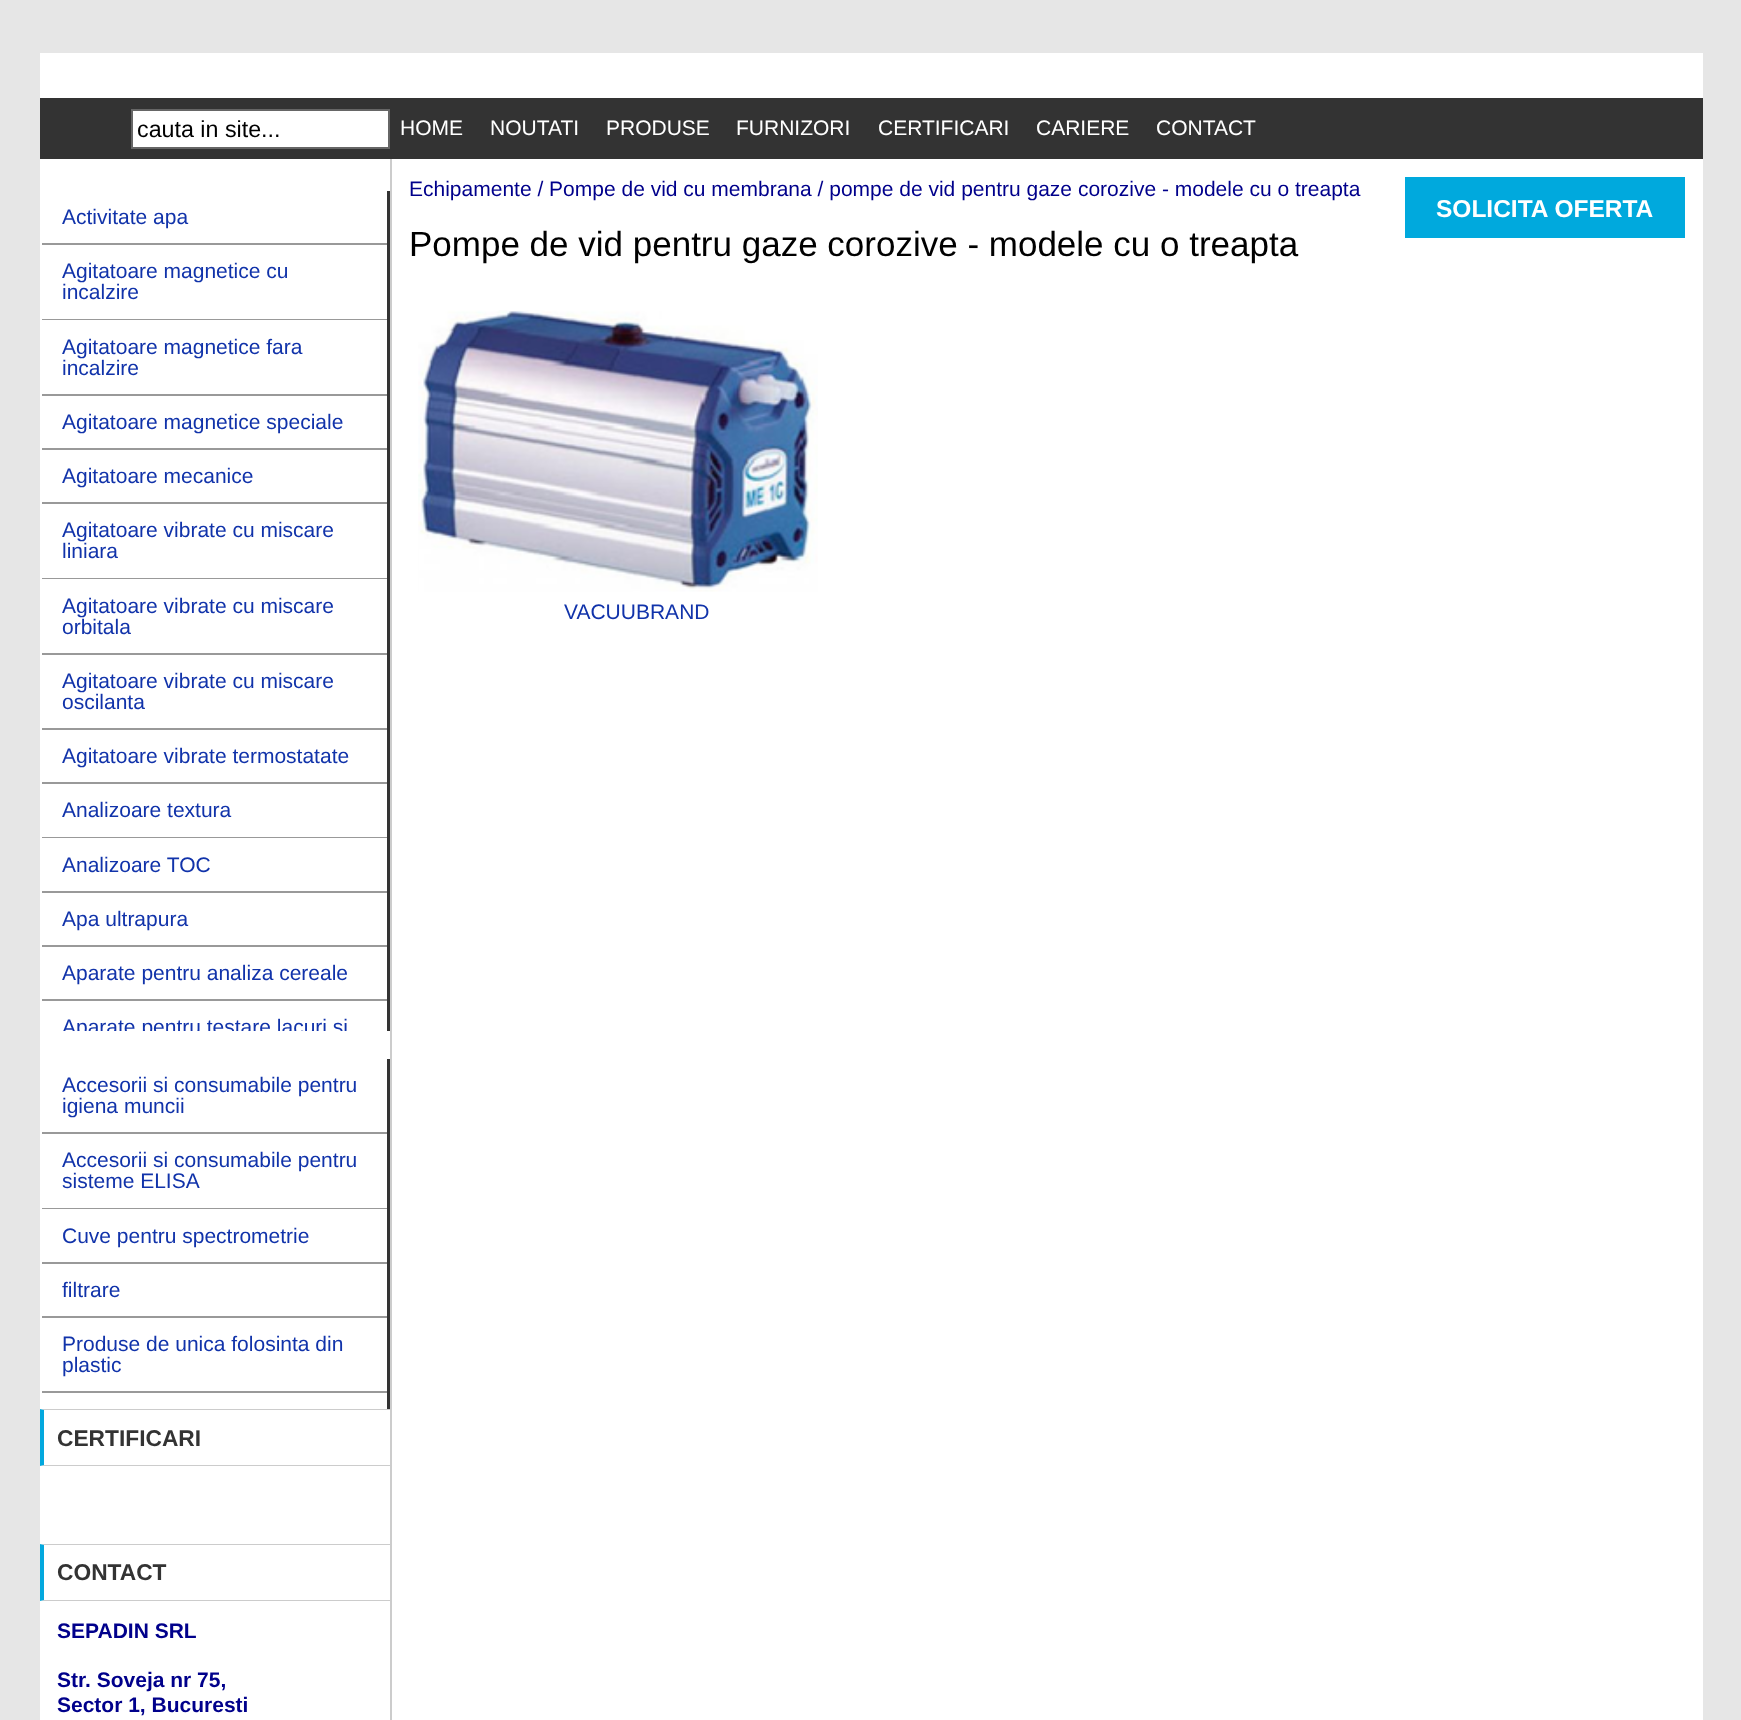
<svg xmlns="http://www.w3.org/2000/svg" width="1741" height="1720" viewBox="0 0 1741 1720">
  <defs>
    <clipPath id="clip1"><rect x="40" y="191" width="352" height="840"/></clipPath>
  </defs>
  <rect width="100%" height="100%" fill="#e6e6e6"/>
  <rect x="40" y="53" width="1663" height="1667" fill="#ffffff"/>
  <rect x="40" y="98" width="1663" height="61" fill="#333333"/>
  <rect x="132" y="110" width="257" height="38" fill="#ffffff" stroke="#666666" stroke-width="2"/>
  <text x="137" y="137" font-family="Liberation Sans" font-size="23.25" fill="#000000">cauta in site...</text>
  <text x="400" y="135" font-family="Liberation Sans" font-size="21" fill="#ffffff">HOME</text>
  <text x="490" y="135" font-family="Liberation Sans" font-size="21" fill="#ffffff">NOUTATI</text>
  <text x="606" y="135" font-family="Liberation Sans" font-size="21" fill="#ffffff">PRODUSE</text>
  <text x="736" y="135" font-family="Liberation Sans" font-size="21" fill="#ffffff">FURNIZORI</text>
  <text x="878" y="135" font-family="Liberation Sans" font-size="21" fill="#ffffff">CERTIFICARI</text>
  <text x="1036" y="135" font-family="Liberation Sans" font-size="21" fill="#ffffff">CARIERE</text>
  <text x="1156" y="135" font-family="Liberation Sans" font-size="21" fill="#ffffff">CONTACT</text>
  <rect x="390" y="159" width="2" height="1561" fill="#cccccc"/>
  <rect x="387" y="191" width="3" height="840" fill="#333333"/>
  <rect x="40" y="243" width="347" height="2" fill="#999999"/>
  <rect x="40" y="243" width="2" height="2" fill="#ffffff"/>
  <text x="62" y="224" font-family="Liberation Sans" font-size="21" fill="#1133aa">Activitate apa</text>
  <rect x="40" y="319" width="347" height="1" fill="#999999"/>
  <rect x="40" y="319" width="2" height="1" fill="#ffffff"/>
  <text x="62" y="278" font-family="Liberation Sans" font-size="21" fill="#1133aa">Agitatoare magnetice cu</text>
  <text x="62" y="299" font-family="Liberation Sans" font-size="21" fill="#1133aa">incalzire</text>
  <rect x="40" y="394" width="347" height="2" fill="#999999"/>
  <rect x="40" y="394" width="2" height="2" fill="#ffffff"/>
  <text x="62" y="354" font-family="Liberation Sans" font-size="21" fill="#1133aa">Agitatoare magnetice fara</text>
  <text x="62" y="375" font-family="Liberation Sans" font-size="21" fill="#1133aa">incalzire</text>
  <rect x="40" y="448" width="347" height="2" fill="#999999"/>
  <rect x="40" y="448" width="2" height="2" fill="#ffffff"/>
  <text x="62" y="429" font-family="Liberation Sans" font-size="21" fill="#1133aa">Agitatoare magnetice speciale</text>
  <rect x="40" y="502" width="347" height="2" fill="#999999"/>
  <rect x="40" y="502" width="2" height="2" fill="#ffffff"/>
  <text x="62" y="483" font-family="Liberation Sans" font-size="21" fill="#1133aa">Agitatoare mecanice</text>
  <rect x="40" y="578" width="347" height="1" fill="#999999"/>
  <rect x="40" y="578" width="2" height="1" fill="#ffffff"/>
  <text x="62" y="537" font-family="Liberation Sans" font-size="21" fill="#1133aa">Agitatoare vibrate cu miscare</text>
  <text x="62" y="558" font-family="Liberation Sans" font-size="21" fill="#1133aa">liniara</text>
  <rect x="40" y="653" width="347" height="2" fill="#999999"/>
  <rect x="40" y="653" width="2" height="2" fill="#ffffff"/>
  <text x="62" y="613" font-family="Liberation Sans" font-size="21" fill="#1133aa">Agitatoare vibrate cu miscare</text>
  <text x="62" y="634" font-family="Liberation Sans" font-size="21" fill="#1133aa">orbitala</text>
  <rect x="40" y="728" width="347" height="2" fill="#999999"/>
  <rect x="40" y="728" width="2" height="2" fill="#ffffff"/>
  <text x="62" y="688" font-family="Liberation Sans" font-size="21" fill="#1133aa">Agitatoare vibrate cu miscare</text>
  <text x="62" y="709" font-family="Liberation Sans" font-size="21" fill="#1133aa">oscilanta</text>
  <rect x="40" y="782" width="347" height="2" fill="#999999"/>
  <rect x="40" y="782" width="2" height="2" fill="#ffffff"/>
  <text x="62" y="763" font-family="Liberation Sans" font-size="21" fill="#1133aa">Agitatoare vibrate termostatate</text>
  <rect x="40" y="837" width="347" height="1" fill="#999999"/>
  <rect x="40" y="837" width="2" height="1" fill="#ffffff"/>
  <text x="62" y="817" font-family="Liberation Sans" font-size="21" fill="#1133aa">Analizoare textura</text>
  <rect x="40" y="891" width="347" height="2" fill="#999999"/>
  <rect x="40" y="891" width="2" height="2" fill="#ffffff"/>
  <text x="62" y="872" font-family="Liberation Sans" font-size="21" fill="#1133aa">Analizoare TOC</text>
  <rect x="40" y="945" width="347" height="2" fill="#999999"/>
  <rect x="40" y="945" width="2" height="2" fill="#ffffff"/>
  <text x="62" y="926" font-family="Liberation Sans" font-size="21" fill="#1133aa">Apa ultrapura</text>
  <rect x="40" y="999" width="347" height="2" fill="#999999"/>
  <rect x="40" y="999" width="2" height="2" fill="#ffffff"/>
  <text x="62" y="980" font-family="Liberation Sans" font-size="21" fill="#1133aa">Aparate pentru analiza cereale</text>
  <g clip-path="url(#clip1)">
    <text x="62" y="1034" font-family="Liberation Sans" font-size="21" fill="#1133aa">Aparate pentru testare lacuri si</text>
  </g>
  <rect x="387" y="1059" width="3" height="350" fill="#333333"/>
  <rect x="40" y="1132" width="347" height="2" fill="#999999"/>
  <rect x="40" y="1132" width="2" height="2" fill="#ffffff"/>
  <text x="62" y="1092" font-family="Liberation Sans" font-size="21" fill="#1133aa">Accesorii si consumabile pentru</text>
  <text x="62" y="1113" font-family="Liberation Sans" font-size="21" fill="#1133aa">igiena muncii</text>
  <rect x="40" y="1208" width="347" height="1" fill="#999999"/>
  <rect x="40" y="1208" width="2" height="1" fill="#ffffff"/>
  <text x="62" y="1167" font-family="Liberation Sans" font-size="21" fill="#1133aa">Accesorii si consumabile pentru</text>
  <text x="62" y="1188" font-family="Liberation Sans" font-size="21" fill="#1133aa">sisteme ELISA</text>
  <rect x="40" y="1262" width="347" height="2" fill="#999999"/>
  <rect x="40" y="1262" width="2" height="2" fill="#ffffff"/>
  <text x="62" y="1243" font-family="Liberation Sans" font-size="21" fill="#1133aa">Cuve pentru spectrometrie</text>
  <rect x="40" y="1316" width="347" height="2" fill="#999999"/>
  <rect x="40" y="1316" width="2" height="2" fill="#ffffff"/>
  <text x="62" y="1297" font-family="Liberation Sans" font-size="21" fill="#1133aa">filtrare</text>
  <rect x="40" y="1391" width="347" height="2" fill="#999999"/>
  <rect x="40" y="1391" width="2" height="2" fill="#ffffff"/>
  <text x="62" y="1351" font-family="Liberation Sans" font-size="21" fill="#1133aa">Produse de unica folosinta din</text>
  <text x="62" y="1372" font-family="Liberation Sans" font-size="21" fill="#1133aa">plastic</text>
  <path d="M40 1409H390V1410H44Z" fill="#cccccc"/>
  <path d="M390 1466H40L44 1465H390Z" fill="#cccccc"/>
  <path d="M40 1466V1409L44 1410V1465Z" fill="#03a8de"/>
  <text x="57" y="1446" font-family="Liberation Sans" font-size="22.75" font-weight="bold" fill="#333333">CERTIFICARI</text>
  <path d="M40 1544H390V1545H44Z" fill="#cccccc"/>
  <path d="M390 1601H40L44 1600H390Z" fill="#cccccc"/>
  <path d="M40 1601V1544L44 1545V1600Z" fill="#03a8de"/>
  <text x="57" y="1580" font-family="Liberation Sans" font-size="22.75" font-weight="bold" fill="#333333">CONTACT</text>
  <text x="57" y="1638" font-family="Liberation Sans" font-size="21" font-weight="bold" fill="#00008b">SEPADIN SRL</text>
  <text x="57" y="1687" font-family="Liberation Sans" font-size="21" font-weight="bold" fill="#00008b">Str. Soveja nr 75,</text>
  <text x="57" y="1712" font-family="Liberation Sans" font-size="21" font-weight="bold" fill="#00008b">Sector 1, Bucuresti</text>
  <text x="409" y="196" font-family="Liberation Sans" font-size="21" fill="#00008b">Echipamente / Pompe de vid cu membrana / pompe de vid pentru gaze corozive - modele cu o treapta</text>
  <rect x="1405" y="177" width="280" height="61" fill="#00a9dd"/>
  <text x="1436" y="217" font-family="Liberation Sans" font-size="24.5" font-weight="bold" fill="#ffffff">SOLICITA OFERTA</text>
  <text x="409" y="256" font-family="Liberation Sans" font-size="35" fill="#000000">Pompe de vid pentru gaze corozive - modele cu o treapta</text>
  <image x="418" y="310" width="400" height="282" href="img1.png"/>
  <text x="564" y="619" font-family="Liberation Sans" font-size="21" fill="#1133aa">VACUUBRAND</text>
</svg>
